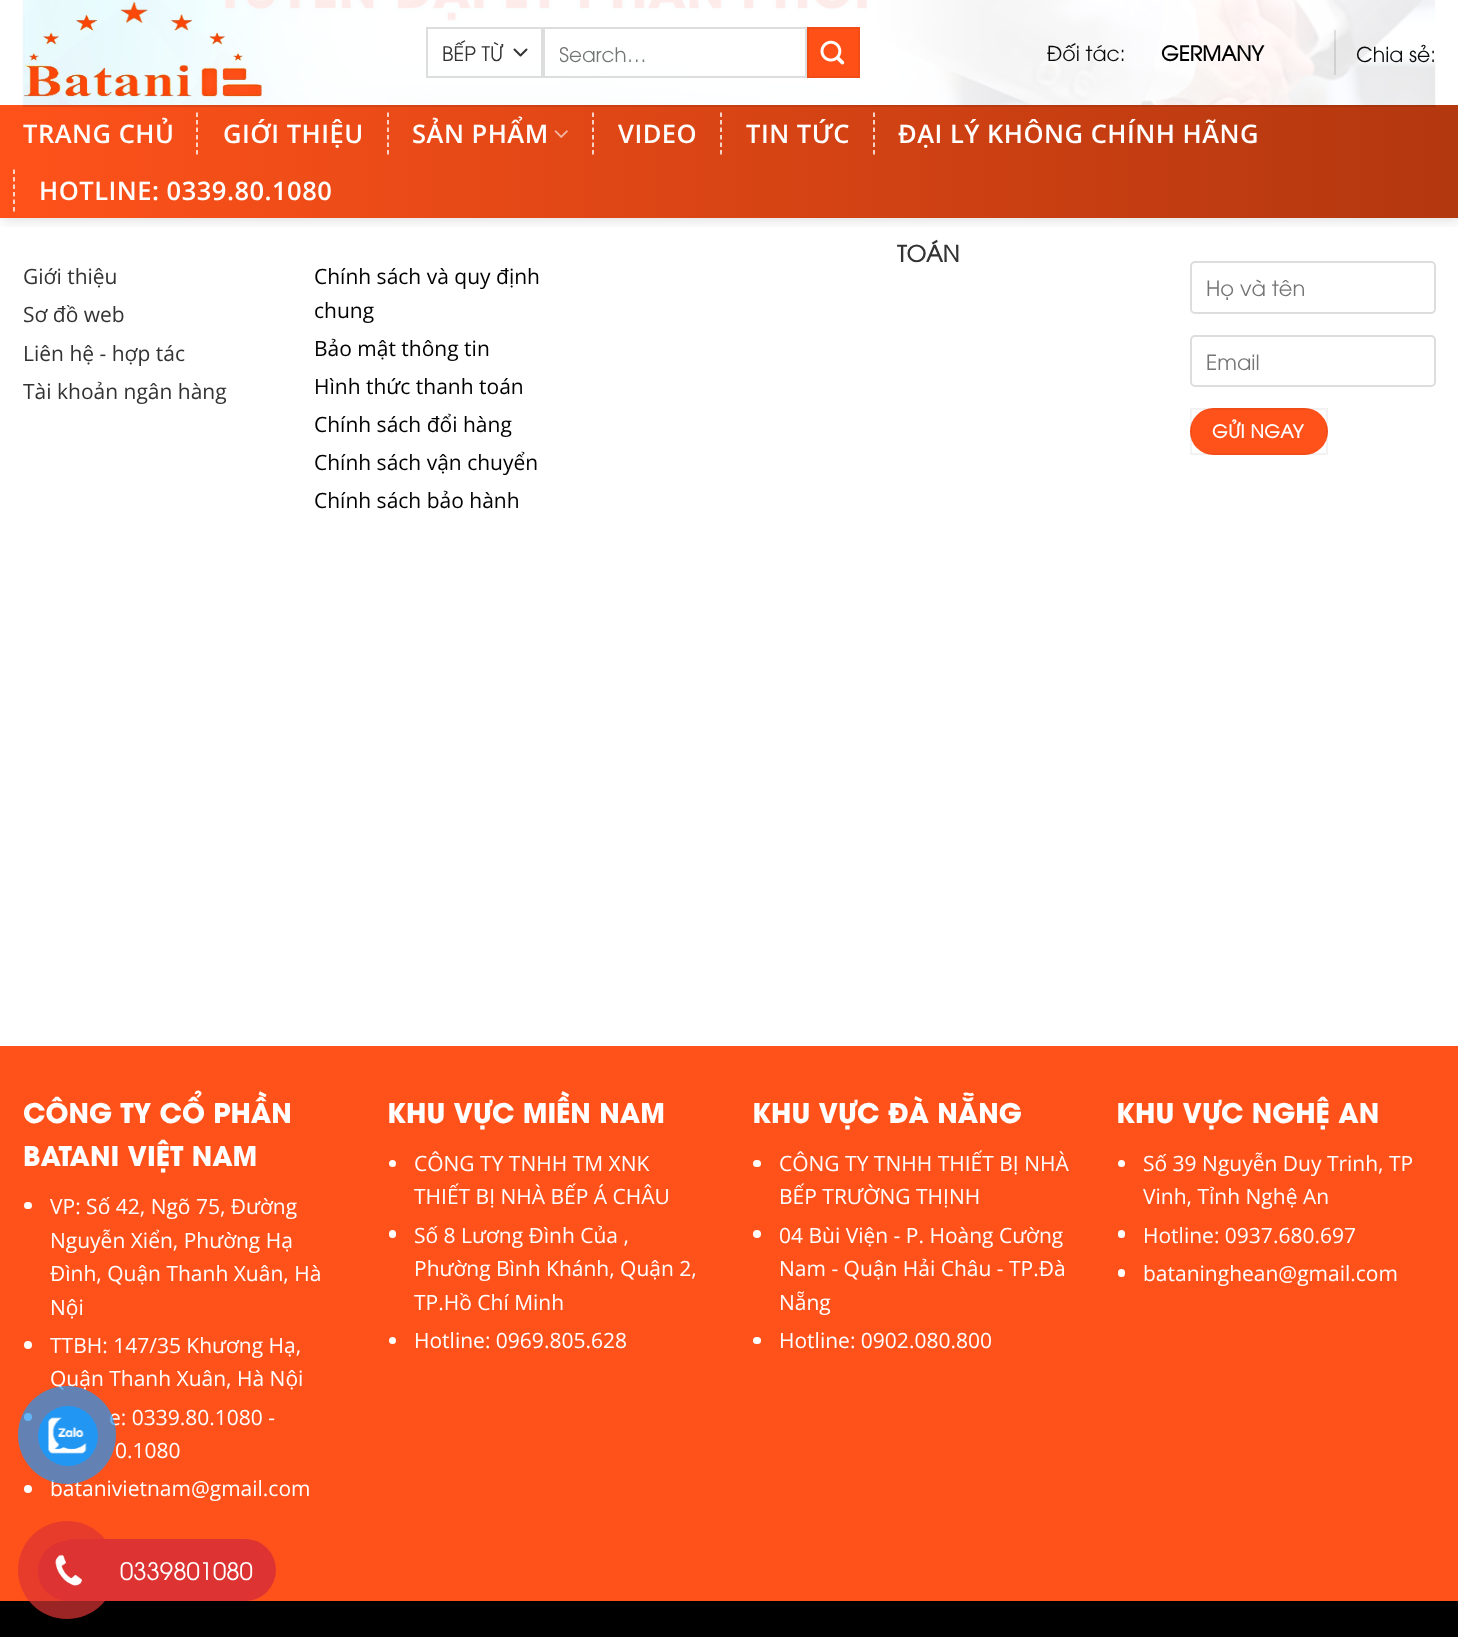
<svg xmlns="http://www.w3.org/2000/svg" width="1458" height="1637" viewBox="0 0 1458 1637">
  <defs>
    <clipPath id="clip1"><rect x="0" y="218" width="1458" height="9"/></clipPath>
    <filter id="blur1" x="-50%" y="-200%" width="200%" height="500%"><feGaussianBlur stdDeviation="7.5"/></filter>
    <clipPath id="clip2"><rect x="560" y="39" width="226" height="27"/></clipPath>
    <linearGradient id="g1" gradientUnits="userSpaceOnUse" x1="0" y1="161" x2="1458" y2="161"><stop offset="0" stop-color="#ff521a"/><stop offset="1" stop-color="#b3370f"/></linearGradient>
  </defs>
  <rect width="100%" height="100%" fill="#ffffff"/>
  <image x="22" y="0" width="1414" height="105" href="img4.png"/>
  <g clip-path="url(#clip1)">
    <rect x="2" y="2" width="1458" height="217" fill="#000000" fill-opacity="0.15" filter="url(#blur1)"/>
  </g>
  <rect x="22" y="0" width="1414" height="105" fill="#ffffff" fill-opacity="0.9"/>
  <image x="24" y="1" width="238" height="96" href="img1.png"/>
  <path d="M514.5 49.5L520.5 55.5L526.5 49.5" fill="none" stroke="#333333" stroke-width="2" stroke-linecap="round" stroke-linejoin="round"/>
  <rect x="427" y="28" width="115" height="49" fill="none" stroke="#dddddd" stroke-width="2"/>
  <text x="442" y="61" font-family="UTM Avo" font-size="20" fill="#333333">BẾP TỪ</text>
  <rect x="544" y="28" width="262" height="49" fill="none" stroke="#dddddd" stroke-width="2"/>
  <g clip-path="url(#clip2)">
    <text x="559" y="62" font-family="UTM Avo" font-size="20" fill="#757575">Search…</text>
  </g>
  <rect x="808" y="28" width="51" height="49" fill="#ff5017" stroke="#f24c16" stroke-width="2"/>
  <image x="820" y="40" width="25" height="25" href="img2.png"/>
  <text x="1047" y="61" font-family="UTM Avo" font-size="20.5" fill="#0a0a0a">Đối tác:</text>
  <text x="1161" y="61" font-family="UTM Avo" font-size="20.5" font-weight="bold" fill="#000000">GERMANY</text>
  <rect x="1334" y="30" width="2" height="45" fill="#000000" fill-opacity="0.1"/>
  <text x="1356" y="62" font-family="UTM Avo" font-size="20.5" fill="#0a0a0a">Chia sẻ:</text>
  <rect x="0" y="105" width="1458" height="113" fill="url(#g1)"/>
  <rect x="23" y="105" width="1413" height="2" fill="#0a0a0a" fill-opacity="0.1"/>
  <text x="23" y="143" font-family="Open Sans" font-size="25.5" font-weight="600" letter-spacing="0.5" fill="#ffffff">TRANG CHỦ</text>
  <path d="M197 112.5V154.5" fill="none" stroke="#ffffff" stroke-width="1.5" stroke-dasharray="4.5 3"/>
  <text x="223" y="143" font-family="Open Sans" font-size="25.5" font-weight="600" letter-spacing="0.5" fill="#ffffff">GIỚI THIỆU</text>
  <path d="M388 112.5V154.5" fill="none" stroke="#ffffff" stroke-width="1.5" stroke-dasharray="4.5 3"/>
  <text x="412" y="143" font-family="Open Sans" font-size="25.5" font-weight="600" letter-spacing="0.5" fill="#ffffff">SẢN PHẨM</text>
  <image x="554" y="130" width="14" height="8" href="img3.png"/>
  <path d="M593 112.5V154.5" fill="none" stroke="#ffffff" stroke-width="1.5" stroke-dasharray="4.5 3"/>
  <text x="618" y="143" font-family="Open Sans" font-size="25.5" font-weight="600" letter-spacing="0.5" fill="#ffffff">VIDEO</text>
  <path d="M721 112.5V154.5" fill="none" stroke="#ffffff" stroke-width="1.5" stroke-dasharray="4.5 3"/>
  <text x="746" y="143" font-family="Open Sans" font-size="25.5" font-weight="600" letter-spacing="0.5" fill="#ffffff">TIN TỨC</text>
  <path d="M874 112.5V154.5" fill="none" stroke="#ffffff" stroke-width="1.5" stroke-dasharray="4.5 3"/>
  <text x="898" y="143" font-family="Open Sans" font-size="25.5" font-weight="600" letter-spacing="0.5" fill="#ffffff">ĐẠI LÝ KHÔNG CHÍNH HÃNG</text>
  <path d="M14 169.5V211.5" fill="none" stroke="#ffffff" stroke-width="1.5" stroke-dasharray="4.5 3"/>
  <text x="39" y="200" font-family="Open Sans" font-size="25.5" font-weight="600" letter-spacing="0.5" fill="#ffffff">HOTLINE: 0339.80.1080</text>
  <text x="897" y="262" font-family="UTM Avo" font-size="22.5" font-weight="bold" fill="#333333">TOÁN</text>
  <text x="23" y="284" font-family="Open Sans" font-size="21" fill="#333333">Giới thiệu</text>
  <text x="23" y="322" font-family="Open Sans" font-size="21" fill="#333333">Sơ đồ web</text>
  <text x="23" y="361" font-family="Open Sans" font-size="21" fill="#333333">Liên hệ - hợp tác</text>
  <text x="23" y="399" font-family="Open Sans" font-size="21" fill="#333333">Tài khoản ngân hàng</text>
  <text x="314" y="284" font-family="Open Sans" font-size="21" fill="#000000">Chính sách và quy định</text>
  <text x="314" y="318" font-family="Open Sans" font-size="21" fill="#000000">chung</text>
  <text x="314" y="356" font-family="Open Sans" font-size="21" fill="#000000">Bảo mật thông tin</text>
  <text x="314" y="394" font-family="Open Sans" font-size="21" fill="#000000">Hình thức thanh toán</text>
  <text x="314" y="432" font-family="Open Sans" font-size="21" fill="#000000">Chính sách đổi hàng</text>
  <text x="314" y="470" font-family="Open Sans" font-size="21" fill="#000000">Chính sách vận chuyển</text>
  <text x="314" y="508" font-family="Open Sans" font-size="21" fill="#000000">Chính sách bảo hành</text>
  <rect x="1191" y="262" width="244" height="51" rx="4" fill="none" stroke="#dddddd" stroke-width="2"/>
  <text x="1206" y="296" font-family="UTM Avo" font-size="21" fill="#757575">Họ và tên</text>
  <rect x="1191" y="336" width="244" height="50" rx="4" fill="none" stroke="#dddddd" stroke-width="2"/>
  <text x="1206" y="370" font-family="UTM Avo" font-size="21" fill="#757575">Email</text>
  <rect x="1190" y="408" width="138" height="47" rx="23.5" fill="#ff521a"/>
  <rect x="1191" y="409" width="136" height="45" fill="none" stroke="#000000" stroke-opacity="0.05" stroke-width="2"/>
  <text x="1212" y="438" font-family="UTM Avo" font-size="18" font-weight="bold" letter-spacing="0.5" fill="#ffffff">GỬI NGAY</text>
  <rect x="0" y="1046" width="1458" height="555" fill="#ff521a"/>
  <text x="23" y="1123" font-family="'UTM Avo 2'" font-size="27" font-weight="bold" fill="#ffffff">CÔNG TY CỔ PHẦN</text>
  <text x="23" y="1166" font-family="'UTM Avo 2'" font-size="27" font-weight="bold" fill="#ffffff">BATANI VIỆT NAM</text>
  <rect x="24" y="1202" width="8" height="7" rx="3.5" fill="#ffffff"/>
  <text x="50" y="1214" font-family="Open Sans" font-size="21" fill="#ffffff">VP: Số 42, Ngõ 75, Đường</text>
  <text x="50" y="1248" font-family="Open Sans" font-size="21" fill="#ffffff">Nguyễn Xiển, Phường Hạ</text>
  <text x="50" y="1281" font-family="Open Sans" font-size="21" fill="#ffffff">Đình, Quận Thanh Xuân, Hà</text>
  <text x="50" y="1315" font-family="Open Sans" font-size="21" fill="#ffffff">Nội</text>
  <circle cx="28" cy="1345" r="4" fill="#ffffff"/>
  <text x="50" y="1353" font-family="Open Sans" font-size="21" fill="#ffffff">TTBH: 147/35 Khương Hạ,</text>
  <text x="50" y="1386" font-family="Open Sans" font-size="21" fill="#ffffff">Quận Thanh Xuân, Hà Nội</text>
  <circle cx="28" cy="1417" r="4" fill="#ffffff"/>
  <text x="109" y="1425" font-family="Open Sans" font-size="21" fill="#ffffff">e: 0339.80.1080 -</text>
  <text x="115" y="1458" font-family="Open Sans" font-size="21" fill="#ffffff">0.1080</text>
  <circle cx="28" cy="1489" r="4" fill="#ffffff"/>
  <text x="50" y="1496" font-family="Open Sans" font-size="21" fill="#ffffff">batanivietnam@gmail.com</text>
  <text x="387" y="1123" font-family="'UTM Avo 2'" font-size="27" font-weight="bold" fill="#ffffff">KHU VỰC MIỀN NAM</text>
  <circle cx="392.5" cy="1163.5" r="3.5" fill="#ffffff"/>
  <text x="414" y="1171" font-family="Open Sans" font-size="21" fill="#ffffff">CÔNG TY TNHH TM XNK</text>
  <text x="414" y="1204" font-family="Open Sans" font-size="21" fill="#ffffff">THIẾT BỊ NHÀ BẾP Á CHÂU</text>
  <rect x="389" y="1230" width="7" height="8" rx="3.5" fill="#ffffff"/>
  <text x="414" y="1243" font-family="Open Sans" font-size="21" fill="#ffffff">Số 8 Lương Đình Của ,</text>
  <text x="414" y="1276" font-family="Open Sans" font-size="21" fill="#ffffff">Phường Bình Khánh, Quận 2,</text>
  <text x="414" y="1310" font-family="Open Sans" font-size="21" fill="#ffffff">TP.Hồ Chí Minh</text>
  <circle cx="392.5" cy="1340.5" r="3.5" fill="#ffffff"/>
  <text x="414" y="1348" font-family="Open Sans" font-size="21" fill="#ffffff">Hotline: 0969.805.628</text>
  <text x="752" y="1123" font-family="'UTM Avo 2'" font-size="27" font-weight="bold" fill="#ffffff">KHU VỰC ĐÀ NẴNG</text>
  <rect x="753" y="1160" width="8" height="7" rx="3.5" fill="#ffffff"/>
  <text x="779" y="1171" font-family="Open Sans" font-size="21" fill="#ffffff">CÔNG TY TNHH THIẾT BỊ NHÀ</text>
  <text x="779" y="1204" font-family="Open Sans" font-size="21" fill="#ffffff">BẾP TRƯỜNG THỊNH</text>
  <circle cx="757" cy="1234" r="4" fill="#ffffff"/>
  <text x="779" y="1243" font-family="Open Sans" font-size="21" fill="#ffffff">04 Bùi Viện - P. Hoàng Cường</text>
  <text x="779" y="1276" font-family="Open Sans" font-size="21" fill="#ffffff">Nam - Quận Hải Châu - TP.Đà</text>
  <text x="779" y="1310" font-family="Open Sans" font-size="21" fill="#ffffff">Nẵng</text>
  <rect x="753" y="1337" width="8" height="7" rx="3.5" fill="#ffffff"/>
  <text x="779" y="1348" font-family="Open Sans" font-size="21" fill="#ffffff">Hotline: 0902.080.800</text>
  <text x="1116" y="1123" font-family="'UTM Avo 2'" font-size="27" font-weight="bold" fill="#ffffff">KHU VỰC NGHỆ AN</text>
  <circle cx="1121.5" cy="1163.5" r="3.5" fill="#ffffff"/>
  <text x="1143" y="1171" font-family="Open Sans" font-size="21" fill="#ffffff">Số 39 Nguyễn Duy Trinh, TP</text>
  <text x="1143" y="1204" font-family="Open Sans" font-size="21" fill="#ffffff">Vinh, Tỉnh Nghệ An</text>
  <rect x="1118" y="1230" width="7" height="8" rx="3.5" fill="#ffffff"/>
  <text x="1143" y="1243" font-family="Open Sans" font-size="21" fill="#ffffff">Hotline: 0937.680.697</text>
  <rect x="1118" y="1269" width="7" height="8" rx="3.5" fill="#ffffff"/>
  <text x="1143" y="1281" font-family="Open Sans" font-size="21" fill="#ffffff">bataninghean@gmail.com</text>
  <rect x="0" y="1601" width="1458" height="36" fill="#000000"/>
  <circle cx="67" cy="1435" r="49" fill="#2196f3" fill-opacity="0.7"/>
  <circle cx="68" cy="1436" r="30" fill="#2196f3"/>
  <image x="48" y="1417" width="39" height="37" href="img5.png"/>
  <rect x="45" y="1539" width="231" height="62" rx="31" fill="#dd3333"/>
  <circle cx="67" cy="1570" r="49" fill="#dd3333" fill-opacity="0.7"/>
  <circle cx="68" cy="1571" r="30" fill="#dd3333"/>
  <image x="55" y="1554" width="27" height="32" href="img6.png"/>
  <text x="120" y="1580" font-family="UTM Avo" font-size="24" fill="#ffffff">0339801080</text>
</svg>
